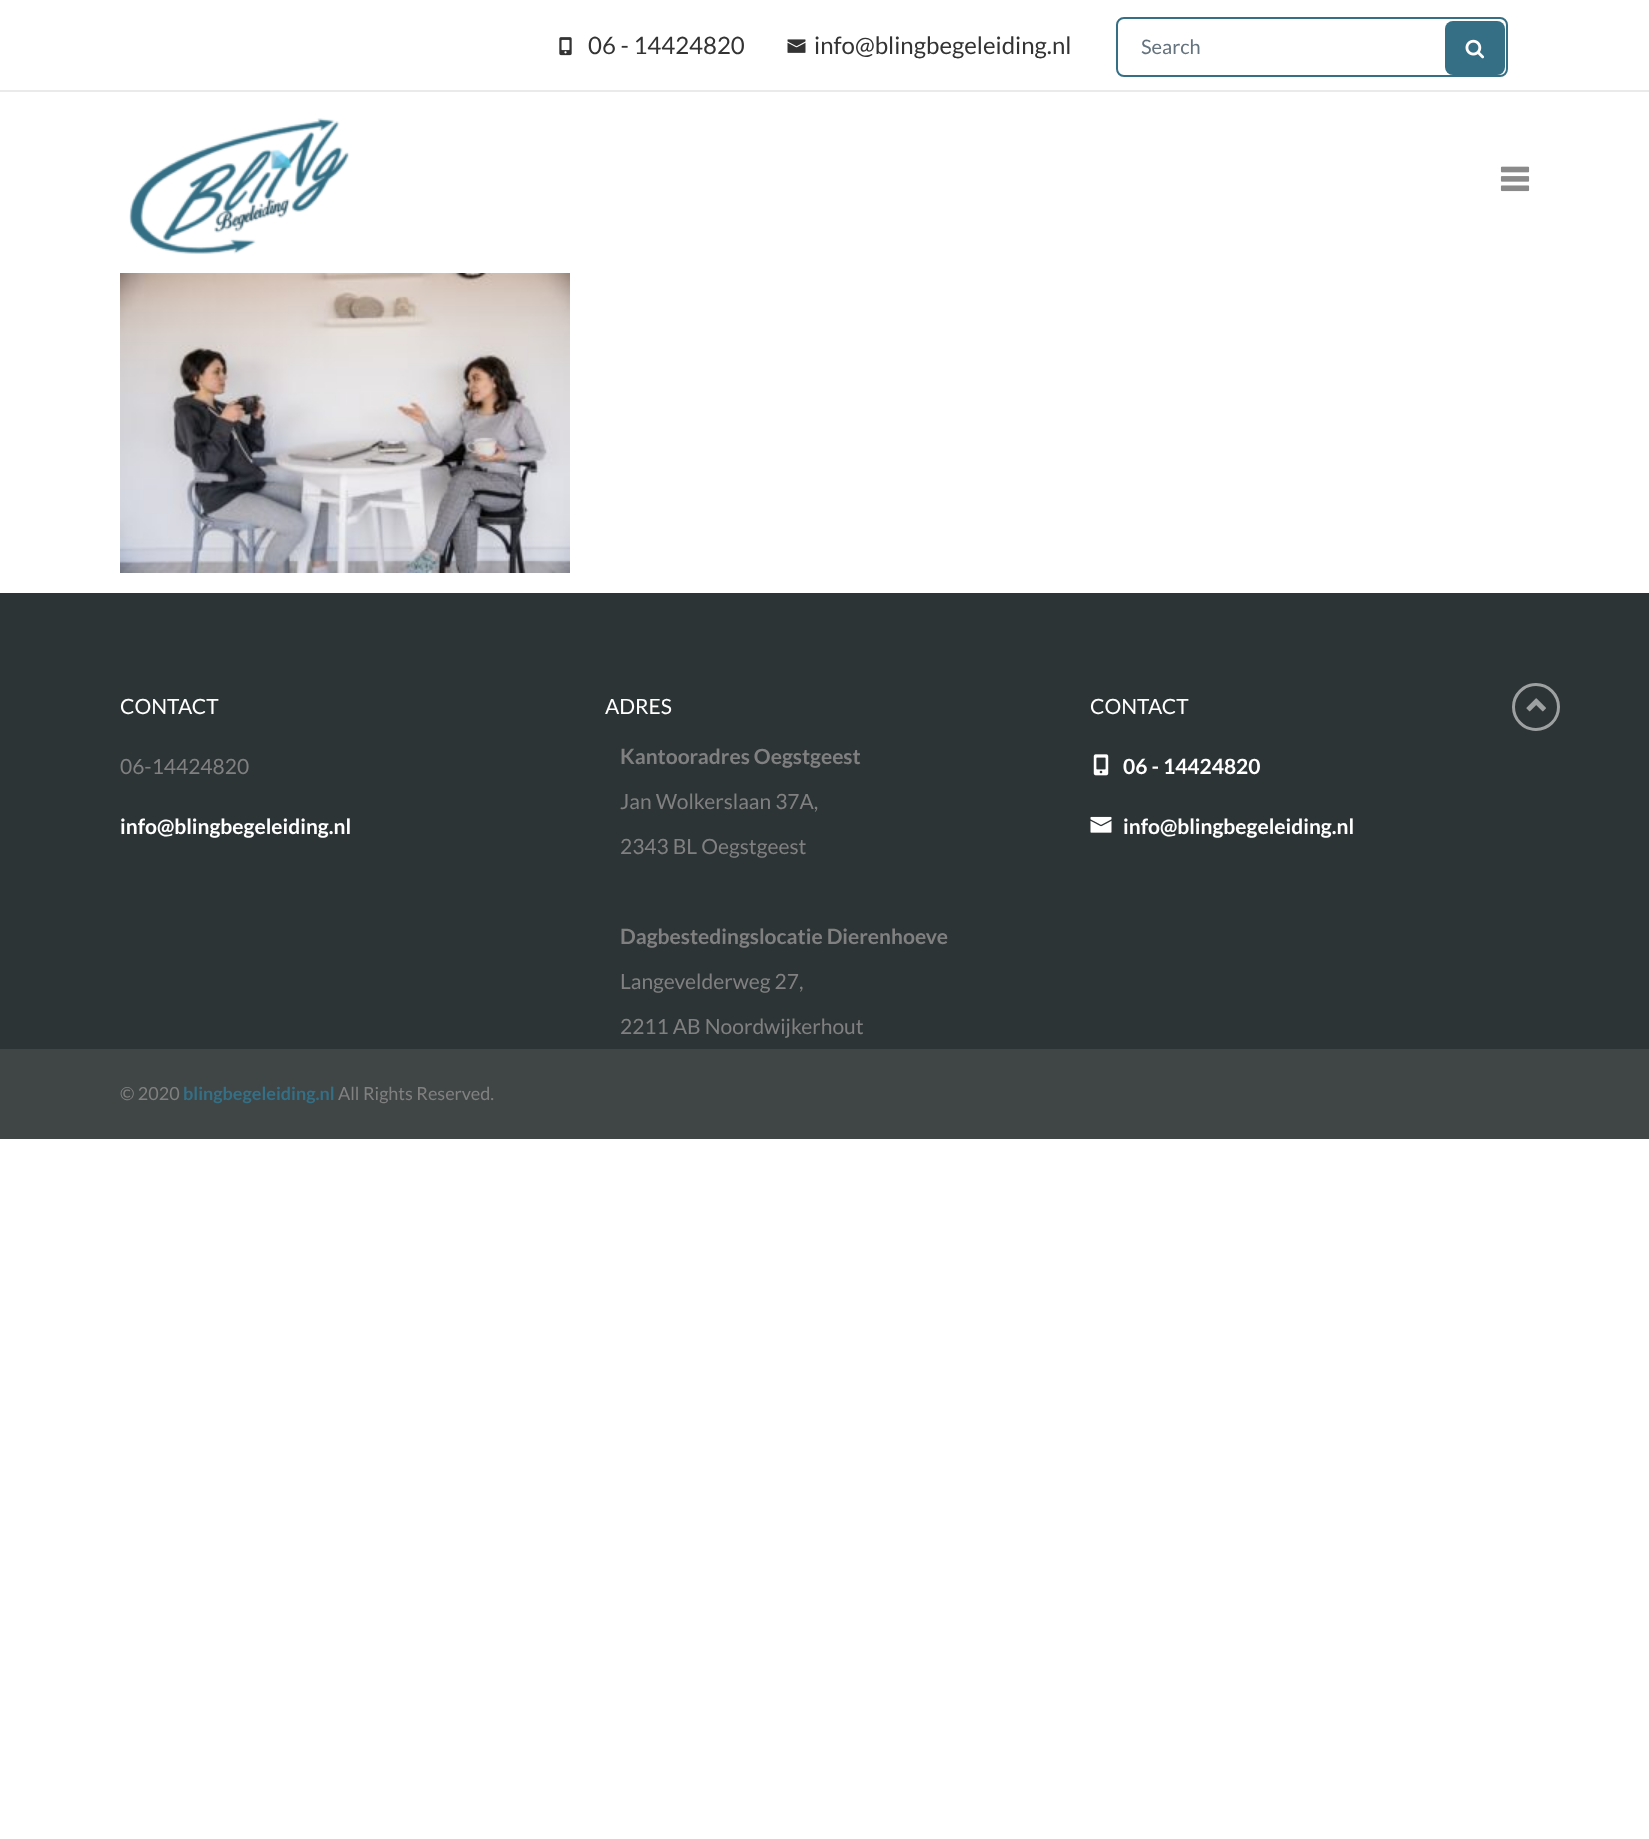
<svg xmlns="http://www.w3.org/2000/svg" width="1649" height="1839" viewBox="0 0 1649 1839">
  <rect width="100%" height="100%" fill="#ffffff"/>
  <rect x="0" y="90" width="1649" height="2" fill="#eaeaea"/>
  <image x="559" y="37" width="13" height="19" href="img1.png"/>
  <text x="588" y="54" font-family="Lato" font-size="24" fill="#333333">06 - 14424820</text>
  <image x="787" y="39" width="19" height="14" href="img2.png"/>
  <text x="814" y="54" font-family="Lato" font-size="24" fill="#333333">info@blingbegeleiding.nl</text>
  <rect x="1117" y="18" width="390" height="58" rx="7" fill="none" stroke="#346f85" stroke-width="2"/>
  <text x="1141" y="54" font-family="Lato" font-size="20" fill="#65737e">Search</text>
  <rect x="1445" y="21" width="60" height="54" rx="8" fill="#346f85"/>
  <image x="1465" y="39" width="19" height="20" href="img3.png"/>
  <image x="129" y="118" width="221" height="136" href="img4.png"/>
  <image x="1500" y="166" width="30" height="26" href="img5.png"/>
  <image x="120" y="273" width="450" height="300" href="img6.png"/>
  <rect x="0" y="593" width="1649" height="456" fill="#2d3435"/>
  <text x="120" y="714" font-family="Lato" font-size="21" fill="#ffffff">CONTACT</text>
  <text x="120" y="774" font-family="Lato" font-size="21" fill="#808080">06-14424820</text>
  <text x="120" y="834" font-family="Lato" font-size="21" font-weight="bold" fill="#ffffff">info@blingbegeleiding.nl</text>
  <text x="605" y="714" font-family="Lato" font-size="21" fill="#ffffff">ADRES</text>
  <text x="620" y="764" font-family="Lato" font-size="21" font-weight="bold" fill="#808080">Kantooradres Oegstgeest</text>
  <text x="620" y="809" font-family="Lato" font-size="21" fill="#808080">Jan Wolkerslaan 37A,</text>
  <text x="620" y="854" font-family="Lato" font-size="21" fill="#808080">2343 BL Oegstgeest</text>
  <text x="620" y="944" font-family="Lato" font-size="21" font-weight="bold" fill="#808080">Dagbestedingslocatie Dierenhoeve</text>
  <text x="620" y="989" font-family="Lato" font-size="21" fill="#808080">Langevelderweg 27,</text>
  <text x="620" y="1034" font-family="Lato" font-size="21" fill="#808080">2211 AB Noordwijkerhout</text>
  <text x="1090" y="714" font-family="Lato" font-size="21" fill="#ffffff">CONTACT</text>
  <image x="1093" y="754" width="16" height="22" href="img7.png"/>
  <text x="1123" y="774" font-family="Lato" font-size="21" font-weight="bold" fill="#ffffff">06 - 14424820</text>
  <image x="1090" y="816" width="22" height="17" href="img8.png"/>
  <text x="1123" y="834" font-family="Lato" font-size="21" font-weight="bold" fill="#ffffff">info@blingbegeleiding.nl</text>
  <circle cx="1536" cy="707" r="22.5" fill="none" stroke="#9ea1a2" stroke-width="3"/>
  <image x="1526" y="698" width="20" height="14" href="img9.png"/>
  <rect x="0" y="1049" width="1649" height="90" fill="#404546"/>
  <text x="120" y="1100" font-family="Lato" font-size="18" fill="#808080">© 2020</text>
  <text x="183" y="1100" font-family="Lato" font-size="18" font-weight="bold" fill="#346f85">blingbegeleiding.nl</text>
  <text x="338" y="1100" font-family="Lato" font-size="18" fill="#808080">All Rights Reserved.</text>
</svg>
